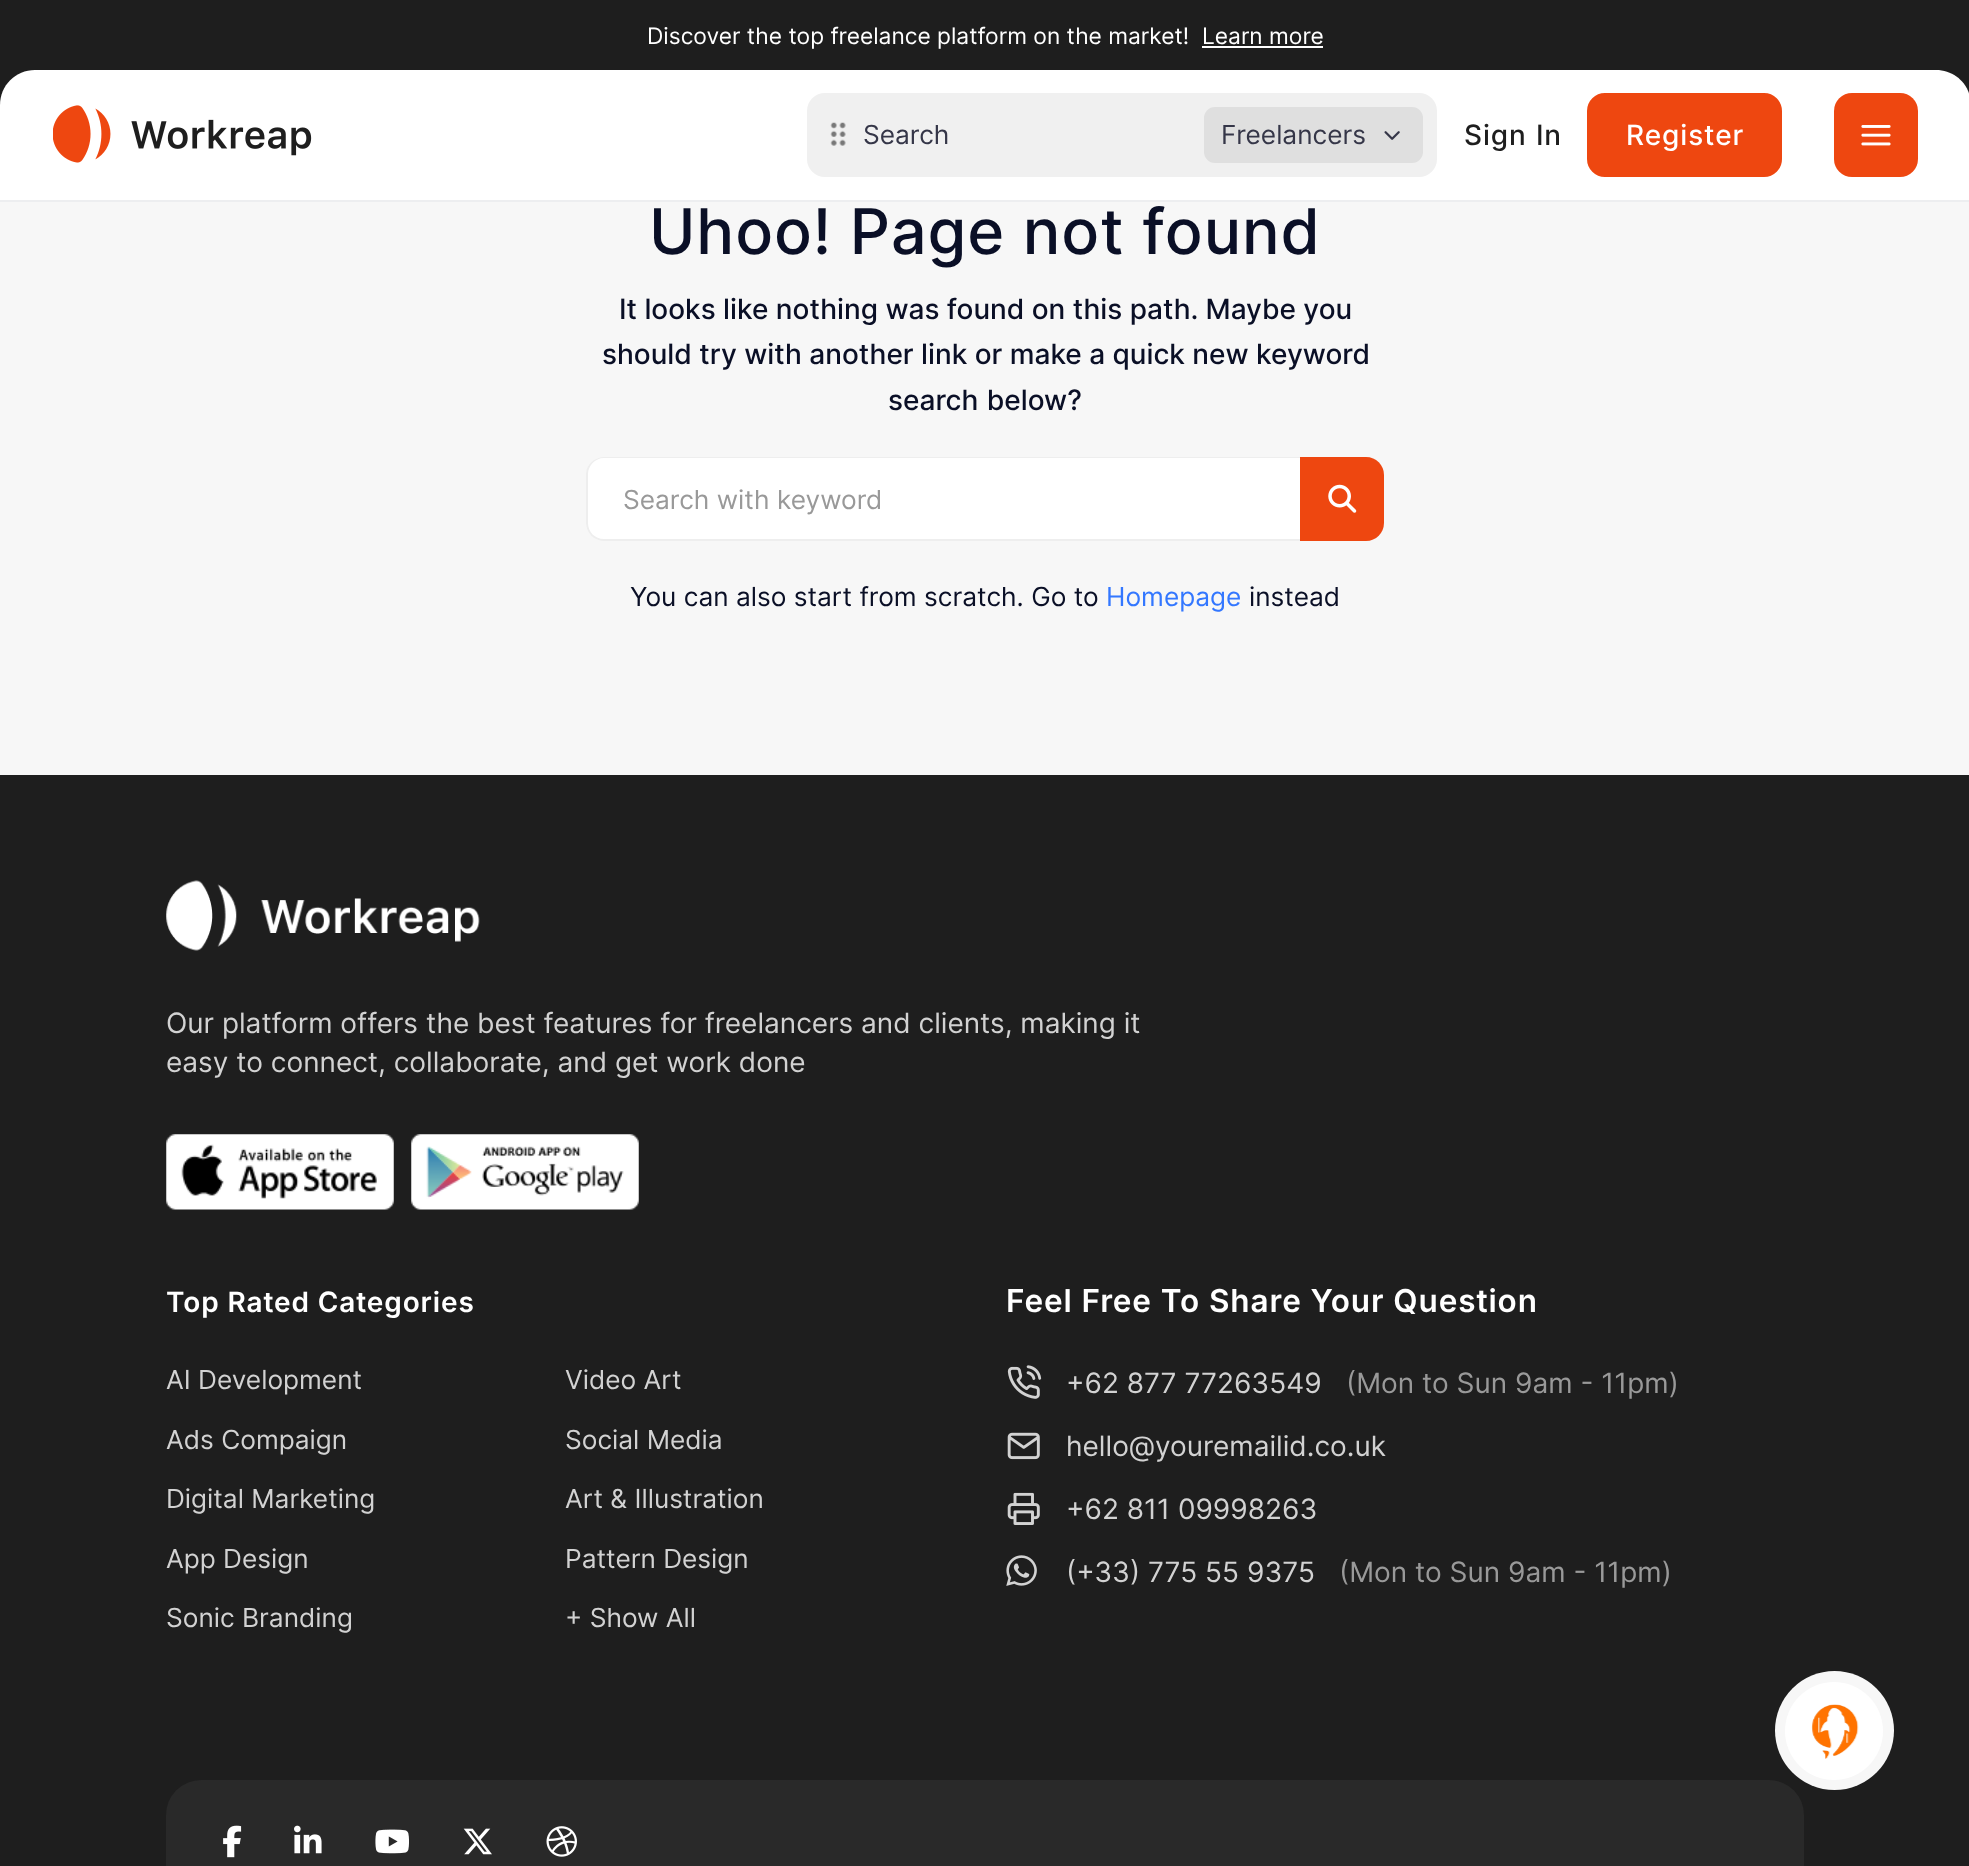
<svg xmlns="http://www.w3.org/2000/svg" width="1969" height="1866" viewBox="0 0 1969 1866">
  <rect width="100%" height="100%" fill="#f7f7f7"/>
  <rect x="0" y="0" width="1969" height="105" fill="#1e1e1e"/>
  <rect x="0" y="200" width="1969" height="2" fill="#edeef0"/>
  <text x="647" y="44" font-family="Inter" font-size="22.75" fill="#ffffff">Discover the top freelance platform on the market!</text>
  <text x="1202" y="44" font-family="Inter" font-size="22.75" fill="#ffffff">Learn more</text>
  <rect x="1202" y="46" width="121" height="2" fill="#ffffff"/>
  <path d="M35 70H1936C1955.5 70 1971 85.5 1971 105V200H0V105C0 85.5 15.5 70 35 70Z" fill="#ffffff"/>
  <image x="53" y="105" width="259" height="58" href="img1.png"/>
  <rect x="807" y="93" width="630" height="84" rx="18" fill="#f0f0f0"/>
  <image x="830" y="122" width="16" height="24" href="img2.png"/>
  <text x="863" y="144" font-family="Inter" font-size="26.25" fill="#353648">Search</text>
  <rect x="1204" y="107" width="219" height="56" rx="11" fill="#dfdfdf"/>
  <text x="1221" y="144" font-family="Inter" font-size="26.25" fill="#353648">Freelancers</text>
  <image x="1384" y="131" width="16" height="9" href="img3.png"/>
  <text x="1464" y="145" word-spacing="1" font-family="Inter" font-size="28" font-weight="500" letter-spacing="0.9" fill="#1e1e1e">Sign In</text>
  <rect x="1588" y="94" width="193" height="82" rx="17" fill="#ee4710" stroke="#ee4710" stroke-width="2"/>
  <text x="1626" y="145" font-family="Inter" font-size="28" font-weight="500" letter-spacing="0.9" fill="#ffffff">Register</text>
  <rect x="1834" y="93" width="84" height="84" rx="18" fill="#ee4710"/>
  <image x="1861" y="125" width="30" height="21" href="img4.png"/>
  <text x="649" y="254" font-family="Inter" font-size="63" font-weight="500" letter-spacing="0.9" fill="#0a0f26">Uhoo! Page not found</text>
  <text x="619" y="319" font-family="Inter" font-size="28" font-weight="500" fill="#0a0f26">It looks like nothing was found on this path. Maybe you</text>
  <text x="602" y="364" font-family="Inter" font-size="28" font-weight="500" fill="#0a0f26">should try with another link or make a quick new keyword</text>
  <text x="888" y="410" word-spacing="1" font-family="Inter" font-size="28" font-weight="500" fill="#0a0f26">search below?</text>
  <rect x="586" y="457" width="798" height="84" rx="18" fill="#ffffff"/>
  <path d="M604 457H1367C1376 457 1384 465 1384 474V523C1384 533 1376 541 1367 541H604C594 541 586 533 586 523V474C586 465 594 457 604 457ZM604 458H1367C1376 458 1384 466 1384 474V523C1384 532 1376 539 1367 539H604C595 539 588 532 588 523V474C588 466 595 458 604 458Z" fill="#eeeeee" fill-rule="evenodd"/>
  <text x="623" y="509" font-family="Inter" font-size="26.25" fill="#999999">Search with keyword</text>
  <path d="M1300 457H1366C1376 457 1384 465 1384 475V523C1384 533 1376 541 1366 541H1300Z" fill="#ee4710"/>
  <image x="1328" y="484" width="29" height="29" href="img5.png"/>
  <text x="630" y="606" font-family="Inter" font-size="26.25" fill="#0a0f26">You can also start from scratch. Go to</text>
  <text x="1106" y="606" font-family="Inter" font-size="26.25" fill="#3377ff">Homepage</text>
  <text x="1249" y="606" font-family="Inter" font-size="26.25" fill="#0a0f26">instead</text>
  <rect x="0" y="775" width="1969" height="1091" fill="#1e1e1e"/>
  <image x="166" y="880" width="314" height="71" href="img6.png"/>
  <text x="166" y="1033" font-family="Inter" font-size="28" fill="#d2d2d2">Our platform offers the best features for freelancers and clients, making it</text>
  <text x="166" y="1072" font-family="Inter" font-size="28" fill="#d2d2d2">easy to connect, collaborate, and get work done</text>
  <image x="166" y="1134" width="228" height="76" href="img7.png"/>
  <image x="411" y="1134" width="228" height="76" href="img8.png"/>
  <text x="166" y="1312" font-family="Inter" font-size="28" font-weight="600" letter-spacing="0.9" fill="#ffffff">Top Rated Categories</text>
  <text x="166" y="1389" font-family="Inter" font-size="26.25" fill="#d2d2d2">AI Development</text>
  <text x="565" y="1389" font-family="Inter" font-size="26.25" fill="#d2d2d2">Video Art</text>
  <text x="166" y="1449" font-family="Inter" font-size="26.25" fill="#d2d2d2">Ads Compaign</text>
  <text x="565" y="1449" font-family="Inter" font-size="26.25" fill="#d2d2d2">Social Media</text>
  <text x="166" y="1508" font-family="Inter" font-size="26.25" fill="#d2d2d2">Digital Marketing</text>
  <text x="565" y="1508" font-family="Inter" font-size="26.25" fill="#d2d2d2">Art &amp; Illustration</text>
  <text x="166" y="1568" font-family="Inter" font-size="26.25" fill="#d2d2d2">App Design</text>
  <text x="565" y="1568" font-family="Inter" font-size="26.25" fill="#d2d2d2">Pattern Design</text>
  <text x="166" y="1627" font-family="Inter" font-size="26.25" fill="#d2d2d2">Sonic Branding</text>
  <text x="565" y="1627" font-family="Inter" font-size="26.25" fill="#d2d2d2">+ Show All</text>
  <text x="1006" y="1312" font-family="Inter" font-size="31.5" font-weight="600" letter-spacing="0.9" fill="#ffffff">Feel Free To Share Your Question</text>
  <image x="1007" y="1365" width="35" height="34" href="img9.png"/>
  <text x="1066" y="1393" font-family="Inter" font-size="28" fill="#d2d2d2">+62 877 77263549</text>
  <text x="1346" y="1393" font-family="Inter" font-size="28" fill="#999999">(Mon to Sun 9am - 11pm)</text>
  <image x="1007" y="1432" width="33" height="28" href="img10.png"/>
  <text x="1066" y="1456" font-family="Inter" font-size="28" fill="#d2d2d2">hello@youremailid.co.uk</text>
  <image x="1007" y="1492" width="33" height="33" href="img11.png"/>
  <text x="1066" y="1519" font-family="Inter" font-size="28" fill="#d2d2d2">+62 811 09998263</text>
  <image x="1006" y="1555" width="31" height="31" href="img12.png"/>
  <text x="1066" y="1582" font-family="Inter" font-size="28" fill="#d2d2d2">(+33) 775 55 9375</text>
  <text x="1339" y="1582" font-family="Inter" font-size="28" fill="#999999">(Mon to Sun 9am - 11pm)</text>
  <rect x="166" y="1780" width="1638" height="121" rx="35" fill="#292929"/>
  <image x="223" y="1825" width="19" height="33" href="img13.png"/>
  <image x="294" y="1825" width="28" height="29" href="img14.png"/>
  <image x="375" y="1829" width="34" height="25" href="img15.png"/>
  <image x="463" y="1828" width="29" height="27" href="img16.png"/>
  <image x="546" y="1826" width="31" height="31" href="img17.png"/>
  <circle cx="1834.5" cy="1730.5" r="59.5" fill="#f7f7f7"/>
  <circle cx="1834" cy="1731" r="49" fill="#ffffff"/>
  <image x="1811" y="1704" width="48" height="55" href="img18.png"/>
</svg>
